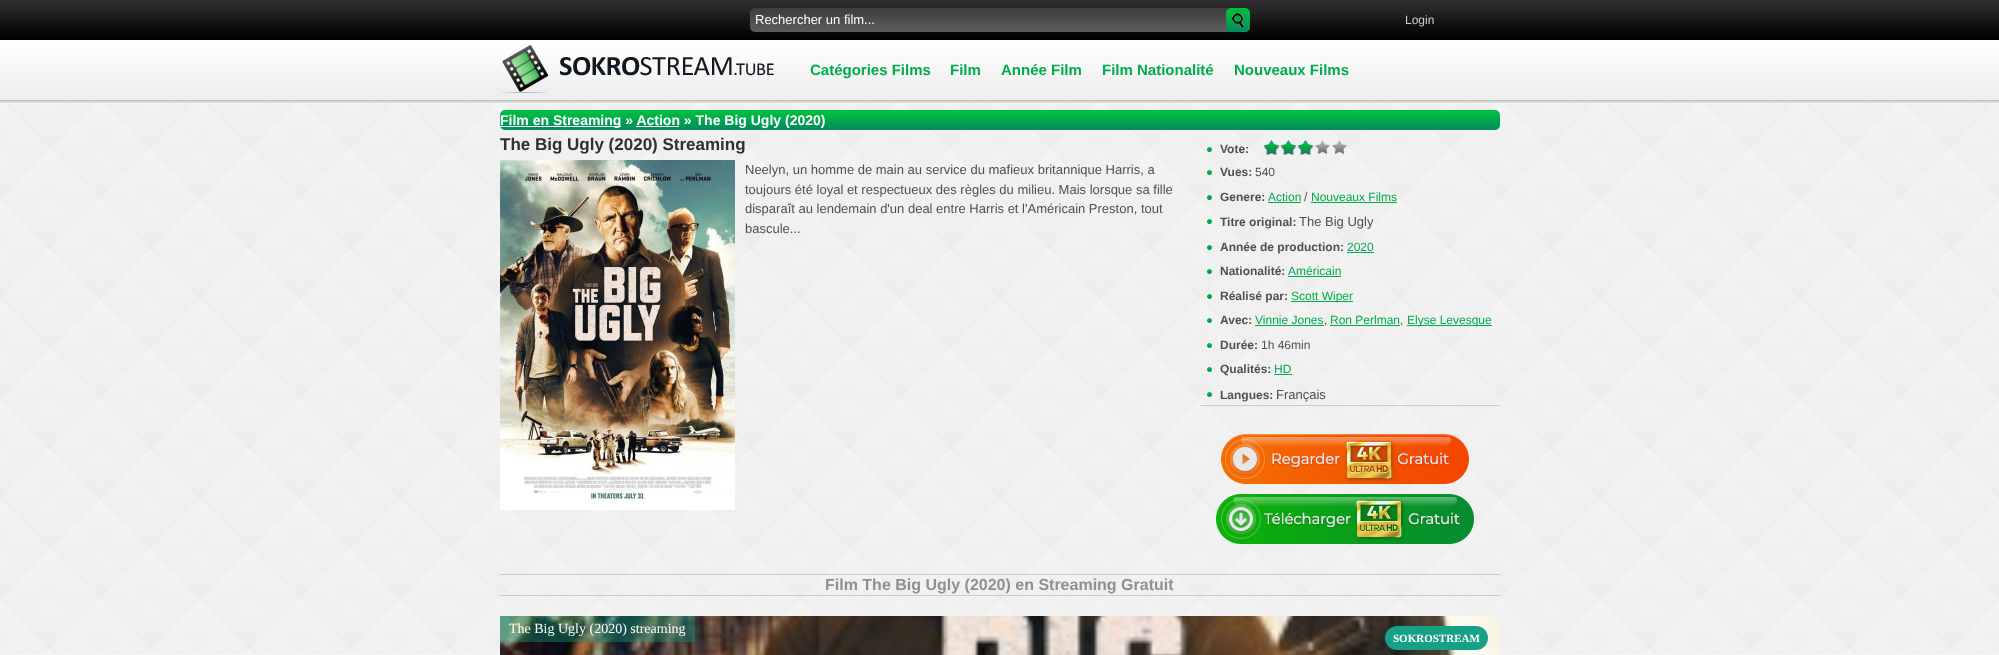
<svg xmlns="http://www.w3.org/2000/svg" width="1999" height="655" viewBox="0 0 1999 655">
  <rect width="100%" height="100%" fill="#f3f3f3"/>
  <image x="0" y="100" width="1999" height="554" href="img1.png"/>
  <image x="0" y="0" width="1999" height="103" href="img2.png"/>
  <image x="750" y="8" width="500" height="24" href="img3.png"/>
  <text x="755" y="24" font-family="Liberation Sans" font-size="13" fill="#ffffff">Rechercher un film...</text>
  <image x="1226" y="8" width="24" height="24" href="img4.png"/>
  <text x="1405" y="24" font-family="Liberation Sans" font-size="12" fill="#cccccc">Login</text>
  <image x="500" y="45" width="274" height="48" href="img5.png"/>
  <text x="810" y="75" font-family="Liberation Sans" font-size="15" font-weight="bold" fill="#00ac4d">Catégories Films</text>
  <text x="950" y="75" font-family="Liberation Sans" font-size="15" font-weight="bold" fill="#00ac4d">Film</text>
  <text x="1001" y="75" font-family="Liberation Sans" font-size="15" font-weight="bold" fill="#00ac4d">Année Film</text>
  <text x="1102" y="75" font-family="Liberation Sans" font-size="15" font-weight="bold" fill="#00ac4d">Film Nationalité</text>
  <text x="1234" y="75" font-family="Liberation Sans" font-size="15" font-weight="bold" fill="#00ac4d">Nouveaux Films</text>
  <image x="500" y="110" width="1000" height="20" href="img6.png"/>
  <rect x="500" y="126" width="121" height="1" fill="#ffffff"/>
  <text x="500" y="125" font-family="Liberation Sans" font-size="14" font-weight="bold" fill="#ffffff">Film en Streaming » Action » The Big Ugly (2020)</text>
  <rect x="636" y="126" width="43" height="1" fill="#ffffff"/>
  <text x="500" y="150" font-family="Liberation Sans" font-size="17" font-weight="bold" fill="#303030">The Big Ugly (2020) Streaming</text>
  <image x="500" y="160" width="235" height="350" href="img7.png"/>
  <text x="745" y="174" font-family="Liberation Sans" font-size="13" fill="#505050">Neelyn, un homme de main au service du mafieux britannique Harris, a</text>
  <text x="745" y="194" font-family="Liberation Sans" font-size="13" fill="#505050">toujours été loyal et respectueux des règles du milieu. Mais lorsque sa fille</text>
  <text x="745" y="213" font-family="Liberation Sans" font-size="13" fill="#505050">disparaît au lendemain d'un deal entre Harris et l'Américain Preston, tout</text>
  <text x="745" y="233" font-family="Liberation Sans" font-size="13" fill="#505050">bascule...</text>
  <image x="1207" y="147" width="5" height="5" href="img8.png"/>
  <text x="1220" y="153" font-family="Liberation Sans" font-size="12" font-weight="bold" fill="#505050">Vote:</text>
  <image x="1264" y="140" width="83" height="14" href="img9.png"/>
  <image x="1264" y="140" width="51" height="15" href="img10.png"/>
  <image x="1207" y="170" width="5" height="5" href="img11.png"/>
  <text x="1220" y="176" font-family="Liberation Sans" font-size="12" font-weight="bold" fill="#505050">Vues:</text>
  <text x="1255" y="176" font-family="Liberation Sans" font-size="12" fill="#505050">540</text>
  <image x="1207" y="195" width="5" height="5" href="img12.png"/>
  <text x="1220" y="201" font-family="Liberation Sans" font-size="12" font-weight="bold" fill="#505050">Genere:</text>
  <text x="1268" y="201" font-family="Liberation Sans" font-size="12" fill="#00ac4d">Action</text>
  <rect x="1268" y="202" width="33" height="1" fill="#00ac4d"/>
  <text x="1304" y="201" font-family="Liberation Sans" font-size="12" fill="#505050">/</text>
  <text x="1311" y="201" font-family="Liberation Sans" font-size="12" fill="#00ac4d">Nouveaux Films</text>
  <rect x="1311" y="202" width="86" height="1" fill="#00ac4d"/>
  <image x="1207" y="219" width="5" height="5" href="img13.png"/>
  <text x="1220" y="226" font-family="Liberation Sans" font-size="12" font-weight="bold" fill="#505050">Titre original:</text>
  <text x="1299" y="226" font-family="Liberation Sans" font-size="13" fill="#505050">The Big Ugly</text>
  <image x="1207" y="245" width="5" height="5" href="img14.png"/>
  <text x="1220" y="251" font-family="Liberation Sans" font-size="12" font-weight="bold" fill="#505050">Année de production:</text>
  <text x="1347" y="251" font-family="Liberation Sans" font-size="12" fill="#00ac4d">2020</text>
  <rect x="1347" y="252" width="27" height="1" fill="#00ac4d"/>
  <image x="1207" y="269" width="5" height="5" href="img15.png"/>
  <text x="1220" y="275" font-family="Liberation Sans" font-size="12" font-weight="bold" fill="#505050">Nationalité:</text>
  <text x="1288" y="275" font-family="Liberation Sans" font-size="12" fill="#00ac4d">Américain</text>
  <rect x="1288" y="276" width="53" height="1" fill="#00ac4d"/>
  <image x="1207" y="294" width="5" height="5" href="img16.png"/>
  <text x="1220" y="300" font-family="Liberation Sans" font-size="12" font-weight="bold" fill="#505050">Réalisé par:</text>
  <rect x="1291" y="301" width="62" height="1" fill="#00ac4d"/>
  <text x="1291" y="300" font-family="Liberation Sans" font-size="12" fill="#00ac4d">Scott Wiper</text>
  <image x="1207" y="318" width="5" height="5" href="img17.png"/>
  <text x="1220" y="324" font-family="Liberation Sans" font-size="12" font-weight="bold" fill="#505050">Avec:</text>
  <text x="1255" y="324" font-family="Liberation Sans" font-size="12" fill="#00ac4d">Vinnie Jones</text>
  <rect x="1255" y="325" width="69" height="1" fill="#00ac4d"/>
  <text x="1324" y="324" font-family="Liberation Sans" font-size="12" fill="#505050">,</text>
  <text x="1330" y="324" font-family="Liberation Sans" font-size="12" fill="#00ac4d">Ron Perlman</text>
  <rect x="1330" y="325" width="70" height="1" fill="#00ac4d"/>
  <text x="1400" y="324" font-family="Liberation Sans" font-size="12" fill="#505050">,</text>
  <rect x="1407" y="325" width="85" height="1" fill="#00ac4d"/>
  <text x="1407" y="324" font-family="Liberation Sans" font-size="12" fill="#00ac4d">Elyse Levesque</text>
  <image x="1207" y="343" width="5" height="5" href="img18.png"/>
  <text x="1220" y="349" font-family="Liberation Sans" font-size="12" font-weight="bold" fill="#505050">Durée:</text>
  <text x="1261" y="349" font-family="Liberation Sans" font-size="12" fill="#505050">1h 46min</text>
  <image x="1207" y="367" width="5" height="5" href="img19.png"/>
  <text x="1220" y="373" font-family="Liberation Sans" font-size="12" font-weight="bold" fill="#505050">Qualités:</text>
  <text x="1274" y="373" font-family="Liberation Sans" font-size="12" fill="#00ac4d">HD</text>
  <rect x="1274" y="374" width="18" height="1" fill="#00ac4d"/>
  <image x="1207" y="392" width="5" height="5" href="img20.png"/>
  <text x="1220" y="399" font-family="Liberation Sans" font-size="12" font-weight="bold" fill="#505050">Langues:</text>
  <text x="1276" y="399" font-family="Liberation Sans" font-size="13" fill="#505050">Français</text>
  <rect x="1200" y="405" width="300" height="1" fill="#cccccc"/>
  <image x="1221" y="434" width="248" height="50" href="img21.png"/>
  <image x="1216" y="494" width="258" height="50" href="img22.png"/>
  <rect x="500" y="574" width="1000" height="1" fill="#cccccc"/>
  <text x="825" y="590" font-family="Liberation Sans" font-size="16" font-weight="bold" fill="#909090">Film The Big Ugly (2020) en Streaming Gratuit</text>
  <rect x="500" y="595" width="1000" height="1" fill="#cccccc"/>
  <image x="500" y="616" width="1000" height="39" href="img23.png"/>
  <rect x="500" y="616" width="195" height="26" fill="#16a085" fill-opacity="0.4"/>
  <text x="509" y="633" font-family="Liberation Serif" font-size="14" fill="#ffffff">The Big Ugly (2020) streaming</text>
  <rect x="1385" y="626" width="103" height="24" rx="12" fill="#16a085"/>
  <text x="1393" y="642" font-family="Liberation Serif" font-size="11" font-weight="bold" fill="#ffffff">SOKROSTREAM</text>
</svg>
